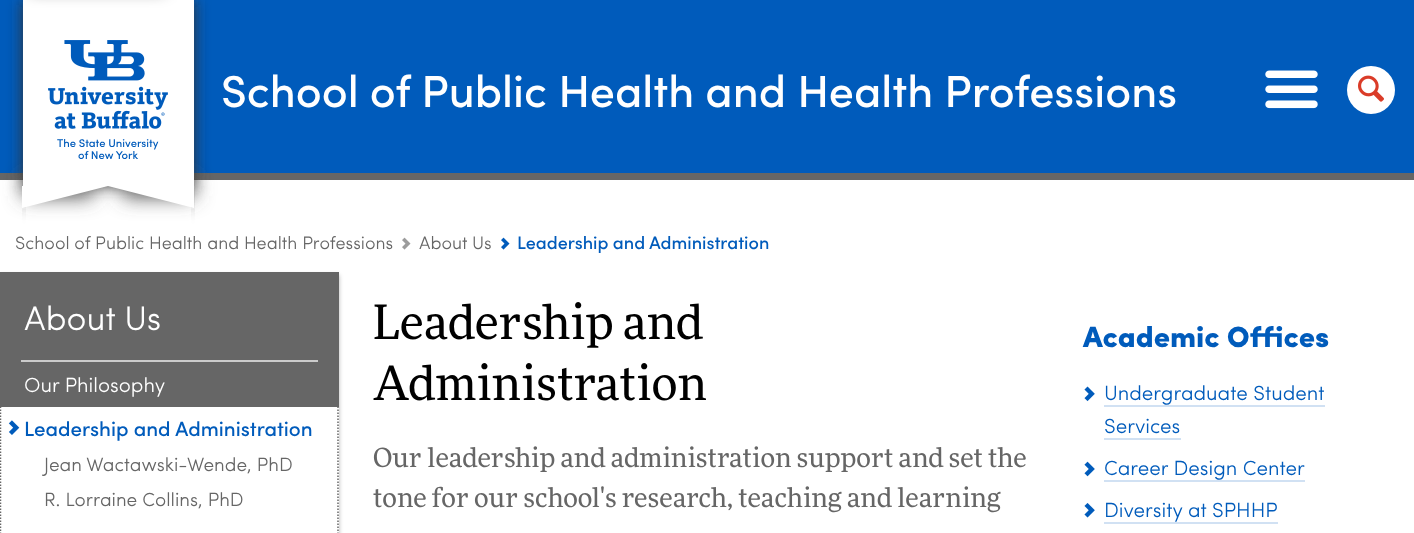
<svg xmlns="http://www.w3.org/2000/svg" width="1414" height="533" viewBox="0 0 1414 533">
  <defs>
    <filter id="blur1" x="-50%" y="-200%" width="200%" height="500%"><feGaussianBlur stdDeviation="7.5"/></filter>
    <filter id="blur2" x="-50%" y="-200%" width="200%" height="500%"><feGaussianBlur stdDeviation="10"/></filter>
    <filter id="blur3" x="-50%" y="-200%" width="200%" height="500%"><feGaussianBlur stdDeviation="2"/></filter>
  </defs>
  <rect width="100%" height="100%" fill="#ffffff"/>
  <rect x="0" y="0" width="1414" height="173" fill="#005bbb"/>
  <rect x="0" y="173" width="1414" height="7" fill="#666666"/>
  <rect x="23" y="0" width="171" height="186" fill="#333333" filter="url(#blur1)"/>
  <rect x="23" y="179" width="70" height="18" rx="3" fill="#555555" filter="url(#blur2)"/>
  <rect x="123" y="179" width="71" height="18" rx="3" fill="#555555" filter="url(#blur2)"/>
  <rect x="23" y="186" width="2" height="23" fill="#333333" filter="url(#blur1)"/>
  <rect x="192" y="186" width="2" height="23" fill="#333333" filter="url(#blur1)"/>
  <rect x="23" y="0" width="171" height="186" fill="#ffffff"/>
  <rect x="30" y="-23" width="135" height="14" fill="#000000" fill-opacity="0.5" filter="url(#blur1)"/>
  <text x="221" y="107" font-family="Sofia" font-size="45" font-weight="500" fill="#ffffff">School of Public Health and Health Professions</text>
  <image x="1265" y="70" width="53" height="39" href="img1.png"/>
  <circle cx="1371" cy="90" r="24" fill="#ffffff"/>
  <image x="1358" y="75" width="26" height="27" href="img2.png"/>
  <image x="48" y="40" width="120" height="89" href="img3.png"/>
  <text x="57" y="147" font-family="Sofia" font-size="11.25" font-weight="500" fill="#005bbb">The State University</text>
  <text x="78" y="159" font-family="Sofia" font-size="11.25" font-weight="500" fill="#005bbb">of New York</text>
  <path d="M194 186V208L108 186Z" fill="#ffffff"/>
  <path d="M22 208V186H108Z" fill="#ffffff"/>
  <text x="15" y="249" font-family="Sofia" font-size="18" fill="#666666">School of Public Health and Health Professions</text>
  <image x="402" y="237" width="9" height="13" href="img4.png"/>
  <text x="419" y="249" font-family="Sofia" font-size="18" fill="#666666">About Us</text>
  <image x="501" y="237" width="9" height="13" href="img5.png"/>
  <text x="517" y="249" font-family="Sofia" font-size="18" font-weight="500" fill="#005bbb">Leadership and Administration</text>
  <rect x="0" y="275" width="339" height="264" fill="#000000" fill-opacity="0.3" filter="url(#blur3)"/>
  <rect x="0" y="272" width="339" height="135" fill="#666666"/>
  <text x="24" y="330" font-family="Sofia" font-size="34" fill="#ffffff">About Us</text>
  <rect x="21" y="360" width="297" height="2" fill="#cbcbcb"/>
  <text x="24" y="392" font-family="Sofia" font-size="20.6" fill="#ffffff">Our Philosophy</text>
  <rect x="0" y="407" width="339" height="126" fill="#ffffff"/>
  <path d="M338 406.5V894" fill="none" stroke="#666666" stroke-width="1.5" stroke-dasharray="1.5 1.5"/>
  <path d="M.5 406.5V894" fill="none" stroke="#666666" stroke-width="1.5" stroke-dasharray="1.5 1.5"/>
  <image x="8" y="420" width="12" height="15" href="img6.png"/>
  <text x="24" y="436" font-family="Sofia" font-size="20.6" font-weight="500" fill="#005bbb">Leadership and Administration</text>
  <text x="44" y="471" font-family="Sofia" font-size="19.1" fill="#666666">Jean Wactawski-Wende, PhD</text>
  <text x="44" y="506" font-family="Sofia" font-size="19.1" fill="#666666">R. Lorraine Collins, PhD</text>
  <text x="373" y="339" font-family="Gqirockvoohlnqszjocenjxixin" font-size="47.25" fill="#000000">Leadership and</text>
  <text x="373" y="400" font-family="Gqirockvoohlnqszjocenjxixin" font-size="47.25" fill="#000000">Administration</text>
  <text x="373" y="467" font-family="Gqirockvoohlnqszjocenjxixin" font-size="26.5" fill="#666666">Our leadership and administration support and set the</text>
  <text x="373" y="507" font-family="Gqirockvoohlnqszjocenjxixin" font-size="26.5" fill="#666666">tone for our school's research, teaching and learning</text>
  <text x="1083" y="347" font-family="'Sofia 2'" font-size="29.5" fill="#005bbb">Academic Offices</text>
  <image x="1084" y="386" width="11" height="16" href="img7.png"/>
  <text x="1104" y="400" font-family="Sofia" font-size="20.6" fill="#005bbb">Undergraduate Student</text>
  <rect x="1104" y="405" width="221" height="2" fill="#d1e1f3"/>
  <text x="1104" y="433" font-family="Sofia" font-size="20.6" fill="#005bbb">Services</text>
  <rect x="1104" y="438" width="77" height="2" fill="#d1e1f3"/>
  <image x="1084" y="461" width="11" height="16" href="img8.png"/>
  <text x="1104" y="475" font-family="Sofia" font-size="20.6" fill="#005bbb">Career Design Center</text>
  <rect x="1104" y="480" width="201" height="2" fill="#d1e1f3"/>
  <image x="1084" y="503" width="11" height="15" href="img9.png"/>
  <text x="1104" y="517" font-family="Sofia" font-size="20.6" fill="#005bbb">Diversity at SPHHP</text>
  <rect x="1104" y="522" width="174" height="2" fill="#d1e1f3"/>
</svg>
